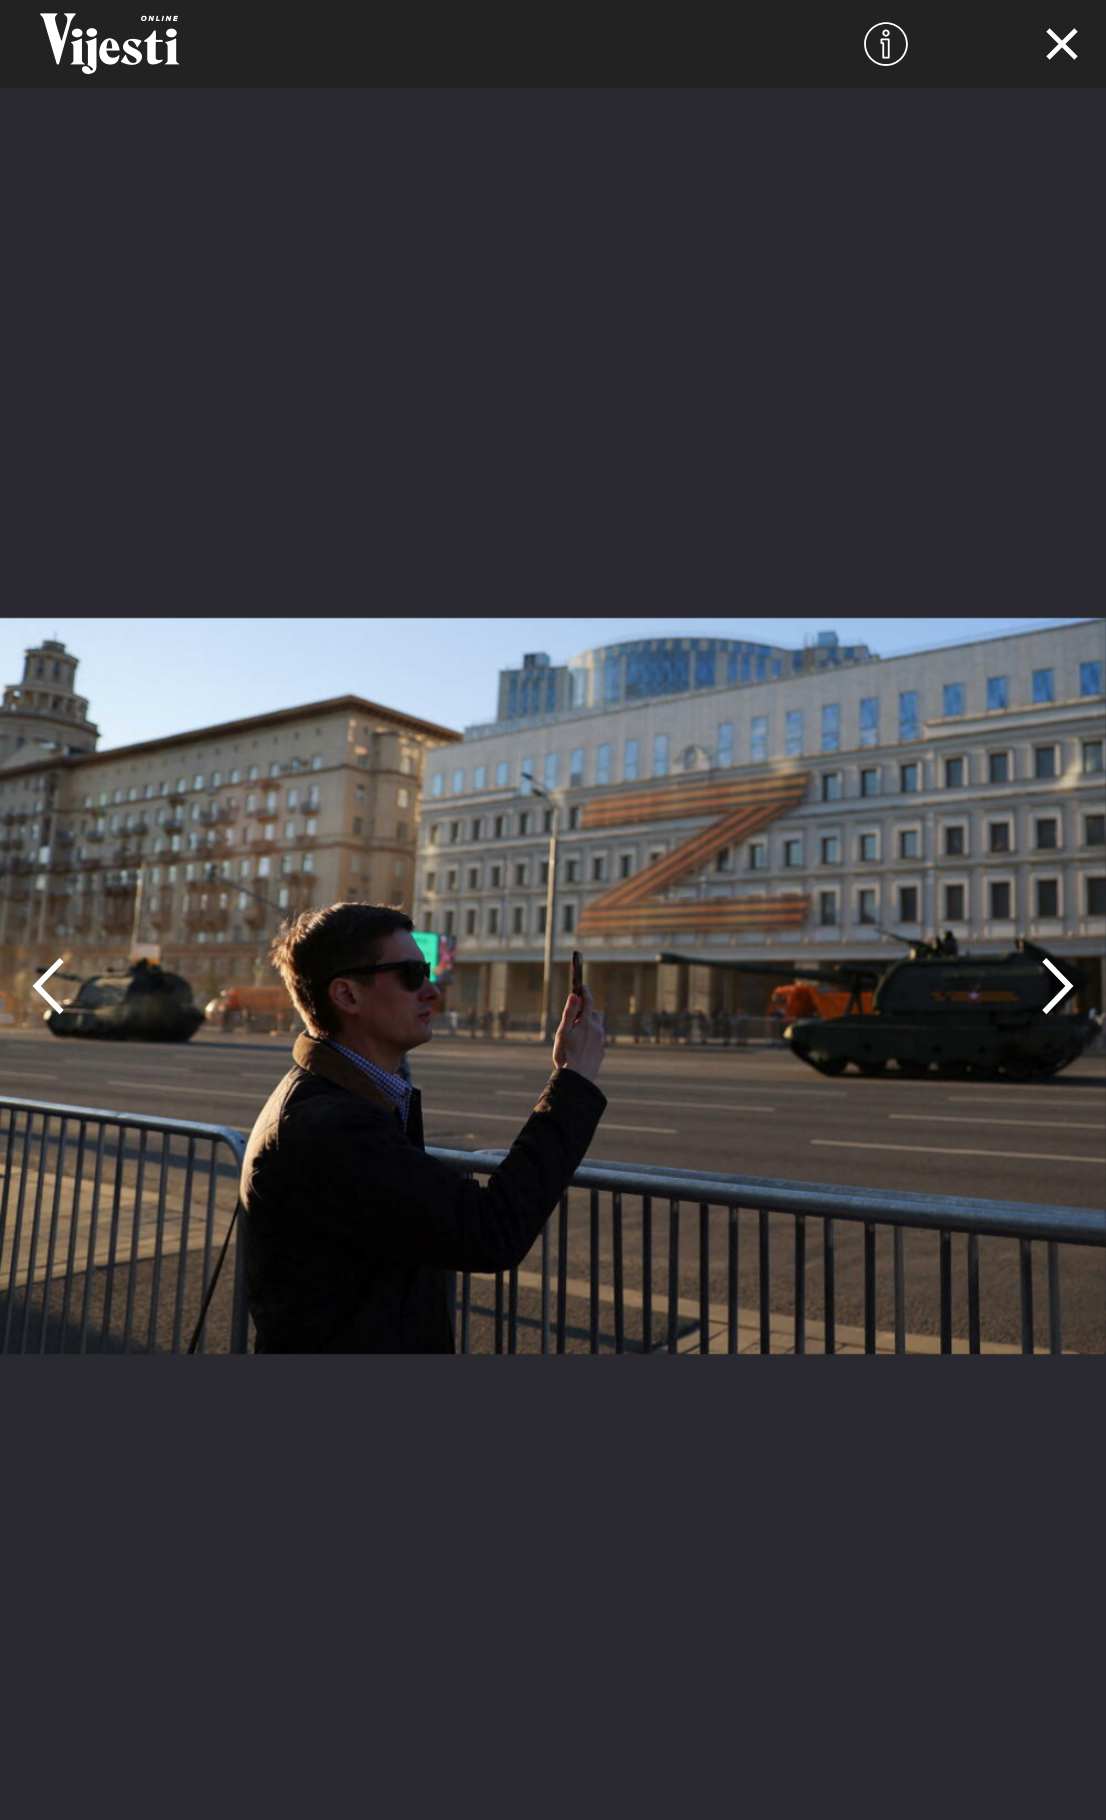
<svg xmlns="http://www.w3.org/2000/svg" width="1106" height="1820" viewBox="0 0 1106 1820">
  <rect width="100%" height="100%" fill="#29292f"/>
  <rect x="0" y="0" width="1106" height="88" fill="#222222"/>
  <image x="40" y="13" width="140" height="62" href="img1.png"/>
  <image x="864" y="22" width="44" height="44" href="img2.png"/>
  <image x="1046" y="28" width="32" height="32" href="img3.png"/>
  <image x="0" y="617" width="1106" height="738" href="img4.png"/>
  <image x="32" y="958" width="32" height="57" href="img5.png"/>
  <image x="1042" y="958" width="32" height="57" href="img6.png"/>
</svg>
